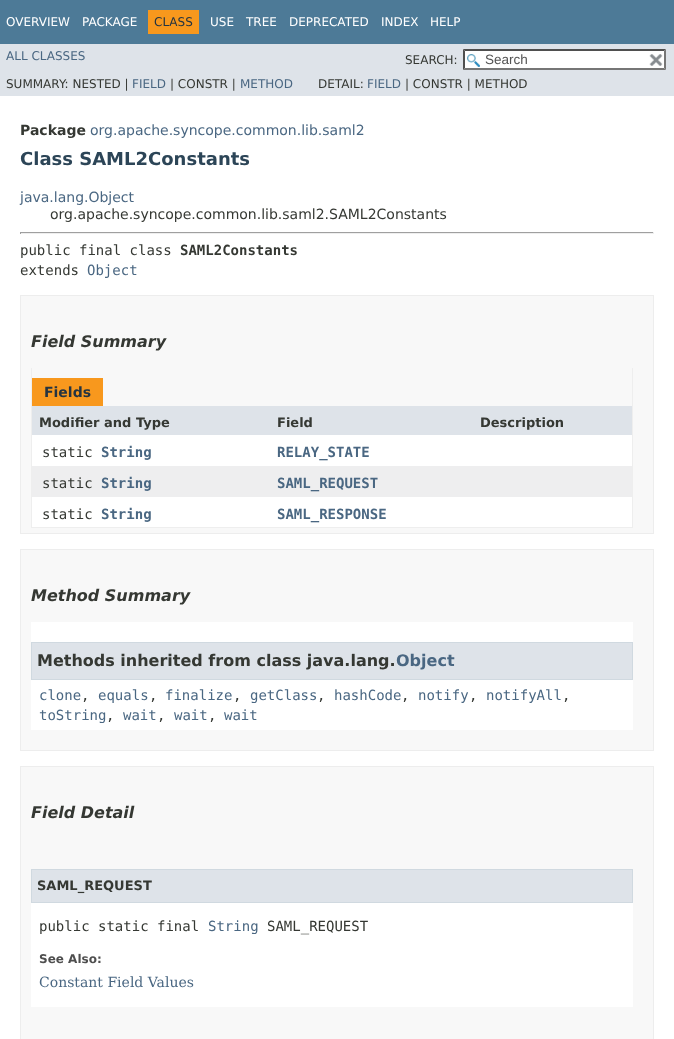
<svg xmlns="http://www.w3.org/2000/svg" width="674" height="1039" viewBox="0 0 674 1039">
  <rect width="100%" height="100%" fill="#ffffff"/>
  <rect x="0" y="0" width="674" height="44" fill="#4d7a97"/>
  <text x="6" y="26" font-family="DejaVu Sans" font-size="12" fill="#ffffff">OVERVIEW</text>
  <text x="82" y="26" font-family="DejaVu Sans" font-size="12" fill="#ffffff">PACKAGE</text>
  <rect x="148" y="10" width="51" height="24" fill="#f8981d"/>
  <text x="154" y="26" font-family="DejaVu Sans" font-size="12" fill="#253441">CLASS</text>
  <text x="210" y="26" font-family="DejaVu Sans" font-size="12" fill="#ffffff">USE</text>
  <text x="246" y="26" font-family="DejaVu Sans" font-size="12" fill="#ffffff">TREE</text>
  <text x="289" y="26" font-family="DejaVu Sans" font-size="12" fill="#ffffff">DEPRECATED</text>
  <text x="381" y="26" font-family="DejaVu Sans" font-size="12" fill="#ffffff">INDEX</text>
  <text x="430" y="26" font-family="DejaVu Sans" font-size="12" fill="#ffffff">HELP</text>
  <rect x="0" y="44" width="674" height="52" fill="#dee3e9"/>
  <text x="6" y="60" font-family="DejaVu Sans" font-size="12" fill="#4a6782">ALL CLASSES</text>
  <text x="405" y="64" font-family="DejaVu Sans" font-size="12" fill="#353833">SEARCH:</text>
  <rect x="463" y="49" width="203" height="21" fill="#ffffff"/>
  <image x="467" y="54" width="13" height="13" href="img1.png"/>
  <path d="M463 49H666L664 51H465Z" fill="#4f4f4f"/>
  <path d="M666 49V70L664 68V51Z" fill="#767676"/>
  <path d="M666 70H463L465 68H664Z" fill="#767676"/>
  <path d="M463 70V49L465 51V68Z" fill="#4f4f4f"/>
  <text x="485" y="64" font-family="Liberation Sans" font-size="13.5" fill="#545454">Search</text>
  <image x="649" y="54" width="14" height="12" href="img2.png"/>
  <text x="6" y="88" font-family="DejaVu Sans" font-size="12" fill="#353833">SUMMARY: NESTED |</text>
  <text x="132" y="88" font-family="DejaVu Sans" font-size="12" fill="#4a6782">FIELD</text>
  <text x="170" y="88" font-family="DejaVu Sans" font-size="12" fill="#353833">| CONSTR |</text>
  <text x="240" y="88" font-family="DejaVu Sans" font-size="12" fill="#4a6782">METHOD</text>
  <text x="318" y="88" font-family="DejaVu Sans" font-size="12" fill="#353833">DETAIL:</text>
  <text x="367" y="88" font-family="DejaVu Sans" font-size="12" fill="#4a6782">FIELD</text>
  <text x="405" y="88" font-family="DejaVu Sans" font-size="12" fill="#353833">| CONSTR | METHOD</text>
  <text x="20" y="135" font-family="DejaVu Sans" font-size="14" font-weight="bold" fill="#353833">Package</text>
  <text x="90" y="135" font-family="DejaVu Sans" font-size="14" fill="#4a6782">org.apache.syncope.common.lib.saml2</text>
  <text x="20" y="165" font-family="DejaVu Sans" font-size="18" font-weight="bold" fill="#2c4557">Class SAML2Constants</text>
  <text x="20" y="202" font-family="DejaVu Sans" font-size="14" fill="#4a6782">java.lang.Object</text>
  <text x="50" y="219" font-family="DejaVu Sans" font-size="14" fill="#353833">org.apache.syncope.common.lib.saml2.SAML2Constants</text>
  <rect x="20" y="232" width="634" height="1" fill="#9f9f9f"/>
  <rect x="653" y="232" width="1" height="2" fill="#eeeeee"/>
  <rect x="20" y="233" width="634" height="1" fill="#eeeeee"/>
  <rect x="20" y="232" width="1" height="2" fill="#9f9f9f"/>
  <text x="20" y="255" font-family="DejaVu Sans Mono" font-size="14" fill="#353833">public final class</text>
  <text x="180" y="255" font-family="DejaVu Sans Mono" font-size="14" font-weight="bold" fill="#353833">SAML2Constants</text>
  <text x="20" y="275" font-family="DejaVu Sans Mono" font-size="14" fill="#353833">extends</text>
  <text x="87" y="275" font-family="DejaVu Sans Mono" font-size="14" fill="#4a6782">Object</text>
  <rect x="20.5" y="295.5" width="633" height="238" fill="#f8f8f8" stroke="#ededed"/>
  <text x="31" y="347" font-family="DejaVu Sans" font-size="16" font-weight="bold" font-style="italic" fill="#353833">Field Summary</text>
  <rect x="632" y="368" width="1" height="160" fill="#eeeeee"/>
  <rect x="31" y="527" width="602" height="1" fill="#eeeeee"/>
  <rect x="31" y="368" width="1" height="160" fill="#eeeeee"/>
  <rect x="32" y="378" width="71" height="28" fill="#f8981d"/>
  <text x="44" y="397" font-family="DejaVu Sans" font-size="14" font-weight="bold" fill="#253441">Fields</text>
  <rect x="32" y="406" width="600" height="29" fill="#dee3e9"/>
  <text x="39" y="427" font-family="DejaVu Sans" font-size="13" font-weight="bold" fill="#353833">Modifier and Type</text>
  <text x="277" y="427" font-family="DejaVu Sans" font-size="13" font-weight="bold" fill="#353833">Field</text>
  <text x="480" y="427" font-family="DejaVu Sans" font-size="13" font-weight="bold" fill="#353833">Description</text>
  <rect x="32" y="435" width="600" height="31" fill="#ffffff"/>
  <text x="42" y="457" font-family="DejaVu Sans Mono" font-size="14" fill="#353833">static</text>
  <text x="101" y="457" font-family="DejaVu Sans Mono" font-size="14" font-weight="bold" fill="#4a6782">String</text>
  <text x="277" y="457" font-family="DejaVu Sans Mono" font-size="14" font-weight="bold" fill="#4a6782">RELAY_STATE</text>
  <rect x="32" y="466" width="600" height="31" fill="#eeeeef"/>
  <text x="42" y="488" font-family="DejaVu Sans Mono" font-size="14" fill="#353833">static</text>
  <text x="101" y="488" font-family="DejaVu Sans Mono" font-size="14" font-weight="bold" fill="#4a6782">String</text>
  <text x="277" y="488" font-family="DejaVu Sans Mono" font-size="14" font-weight="bold" fill="#4a6782">SAML_REQUEST</text>
  <rect x="32" y="497" width="600" height="30" fill="#ffffff"/>
  <text x="42" y="519" font-family="DejaVu Sans Mono" font-size="14" fill="#353833">static</text>
  <text x="101" y="519" font-family="DejaVu Sans Mono" font-size="14" font-weight="bold" fill="#4a6782">String</text>
  <text x="277" y="519" font-family="DejaVu Sans Mono" font-size="14" font-weight="bold" fill="#4a6782">SAML_RESPONSE</text>
  <rect x="20.5" y="549.5" width="633" height="201" fill="#f8f8f8" stroke="#ededed"/>
  <text x="31" y="601" font-family="DejaVu Sans" font-size="16" font-weight="bold" font-style="italic" fill="#353833">Method Summary</text>
  <rect x="31" y="622" width="602" height="108" fill="#ffffff"/>
  <rect x="31.5" y="642.5" width="601" height="37" fill="#dee3e9" stroke="#d0d9e0"/>
  <text x="37" y="666" font-family="DejaVu Sans" font-size="16" font-weight="bold" fill="#353833">Methods inherited from class java.lang.</text>
  <text x="396" y="666" font-family="DejaVu Sans" font-size="16" font-weight="bold" fill="#4a6782">Object</text>
  <text x="39" y="700" font-family="DejaVu Sans Mono" font-size="14" fill="#4a6782">clone</text>
  <text x="81" y="700" font-family="DejaVu Sans Mono" font-size="14" fill="#353833">,</text>
  <text x="98" y="700" font-family="DejaVu Sans Mono" font-size="14" fill="#4a6782">equals</text>
  <text x="149" y="700" font-family="DejaVu Sans Mono" font-size="14" fill="#353833">,</text>
  <text x="165" y="700" font-family="DejaVu Sans Mono" font-size="14" fill="#4a6782">finalize</text>
  <text x="233" y="700" font-family="DejaVu Sans Mono" font-size="14" fill="#353833">,</text>
  <text x="250" y="700" font-family="DejaVu Sans Mono" font-size="14" fill="#4a6782">getClass</text>
  <text x="317" y="700" font-family="DejaVu Sans Mono" font-size="14" fill="#353833">,</text>
  <text x="334" y="700" font-family="DejaVu Sans Mono" font-size="14" fill="#4a6782">hashCode</text>
  <text x="401" y="700" font-family="DejaVu Sans Mono" font-size="14" fill="#353833">,</text>
  <text x="418" y="700" font-family="DejaVu Sans Mono" font-size="14" fill="#4a6782">notify</text>
  <text x="469" y="700" font-family="DejaVu Sans Mono" font-size="14" fill="#353833">,</text>
  <text x="486" y="700" font-family="DejaVu Sans Mono" font-size="14" fill="#4a6782">notifyAll</text>
  <text x="562" y="700" font-family="DejaVu Sans Mono" font-size="14" fill="#353833">,</text>
  <text x="39" y="720" font-family="DejaVu Sans Mono" font-size="14" fill="#4a6782">toString</text>
  <text x="106" y="720" font-family="DejaVu Sans Mono" font-size="14" fill="#353833">,</text>
  <text x="123" y="720" font-family="DejaVu Sans Mono" font-size="14" fill="#4a6782">wait</text>
  <text x="157" y="720" font-family="DejaVu Sans Mono" font-size="14" fill="#353833">,</text>
  <text x="174" y="720" font-family="DejaVu Sans Mono" font-size="14" fill="#4a6782">wait</text>
  <text x="208" y="720" font-family="DejaVu Sans Mono" font-size="14" fill="#353833">,</text>
  <text x="224" y="720" font-family="DejaVu Sans Mono" font-size="14" fill="#4a6782">wait</text>
  <rect x="20.5" y="766.5" width="633" height="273" fill="#f8f8f8" stroke="#ededed"/>
  <text x="31" y="818" font-family="DejaVu Sans" font-size="16" font-weight="bold" font-style="italic" fill="#353833">Field Detail</text>
  <rect x="31" y="903" width="602" height="104" fill="#ffffff"/>
  <rect x="31.5" y="869.5" width="601" height="33" fill="#dee3e9" stroke="#d0d9e0"/>
  <text x="37" y="890" font-family="DejaVu Sans" font-size="13" font-weight="bold" fill="#353833">SAML_REQUEST</text>
  <text x="39" y="931" font-family="DejaVu Sans Mono" font-size="14" fill="#353833">public static final</text>
  <text x="208" y="931" font-family="DejaVu Sans Mono" font-size="14" fill="#4a6782">String</text>
  <text x="267" y="931" font-family="DejaVu Sans Mono" font-size="14" fill="#353833">SAML_REQUEST</text>
  <text x="39" y="963" font-family="DejaVu Sans" font-size="12" font-weight="bold" fill="#4e4e4e">See Also:</text>
  <text x="39" y="987" font-family="DejaVu Serif" font-size="14" fill="#4a6782">Constant Field Values</text>
</svg>
